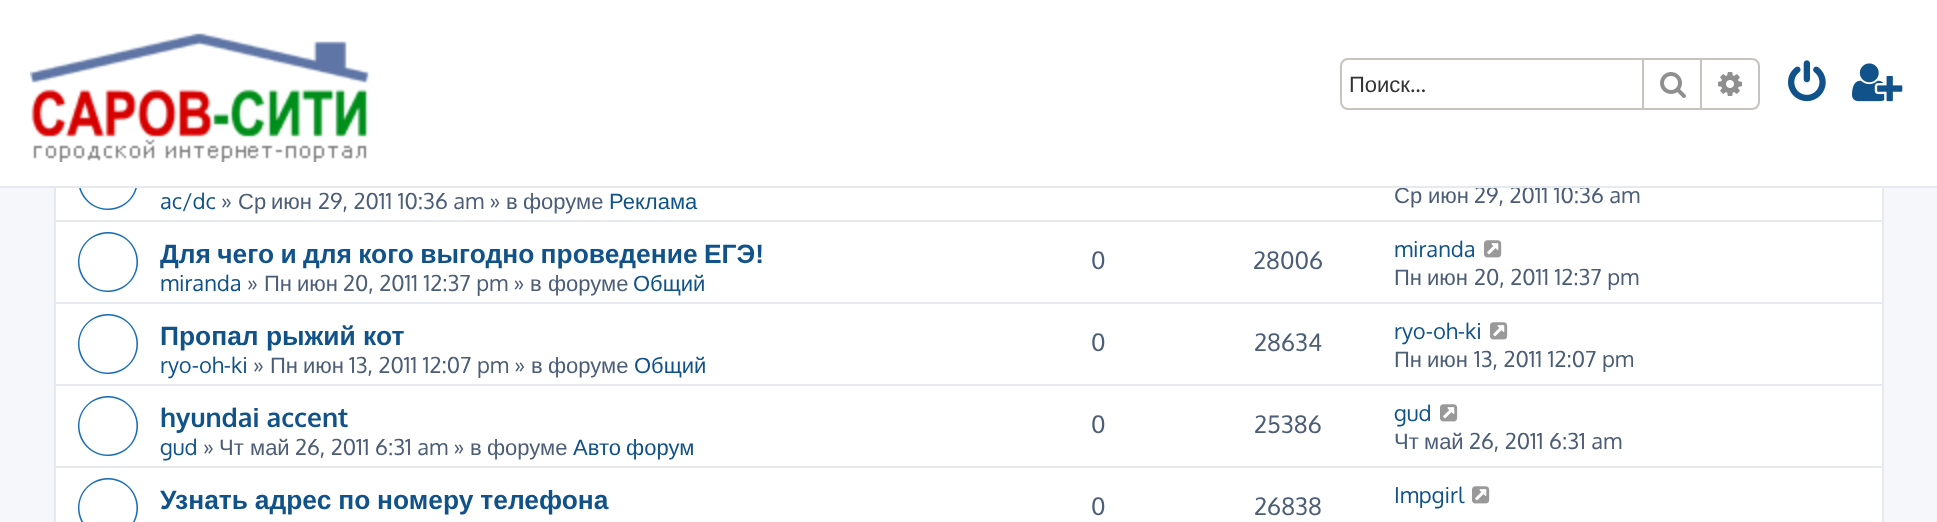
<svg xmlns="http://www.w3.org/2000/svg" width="1937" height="522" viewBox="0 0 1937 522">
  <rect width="100%" height="100%" fill="#f5f7fa"/>
  <rect x="56" y="188" width="1826" height="334" fill="#ffffff"/>
  <rect x="55" y="-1" width="1828" height="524" fill="none" stroke="#e6e9ed" stroke-width="2"/>
  <rect x="0" y="0" width="1937" height="186" fill="#ffffff"/>
  <text x="1394" y="203" font-family="Liberation Sans" font-size="22" fill="#4c5d77">Ср</text>
  <text x="1474" y="203" font-family="Oxygen" font-size="22" fill="#4c5d77">29, 2011 10:36 am</text>
  <rect x="0" y="186" width="1937" height="2" fill="#e6e9ed"/>
  <image x="30" y="33" width="339" height="129" href="img1.png"/>
  <rect x="1341" y="59" width="418" height="50" rx="7" fill="none" stroke="#c7c3bf" stroke-width="2"/>
  <text x="1349" y="92" font-family="Liberation Sans" font-size="22" fill="#333333">Поиск</text>
  <text x="1410" y="92" font-family="Oxygen" font-size="22" fill="#333333">…</text>
  <rect x="1700" y="60" width="2" height="48" fill="#c7c3bf"/>
  <rect x="1642" y="60" width="2" height="48" fill="#c7c3bf"/>
  <image x="1660" y="72" width="26" height="26" href="img2.png"/>
  <image x="1718" y="72" width="24" height="24" href="img3.png"/>
  <image x="1788" y="60" width="38" height="42" href="img4.png"/>
  <image x="1852" y="63" width="51" height="39" href="img5.png"/>
  <image x="79" y="188" width="58" height="22" href="img6.png"/>
  <text x="160" y="209" font-family="Oxygen" font-size="22" fill="#105289">ac/dc</text>
  <text x="221" y="209" font-family="Oxygen" font-size="22" fill="#4c5d77">»</text>
  <text x="238" y="209" font-family="Liberation Sans" font-size="22" fill="#4c5d77">Ср</text>
  <text x="271" y="209" font-family="Liberation Sans" font-size="22" fill="#4c5d77">июн</text>
  <text x="318" y="209" font-family="Oxygen" font-size="22" fill="#4c5d77">29, 2011 10:36 am »</text>
  <text x="506" y="209" font-family="Liberation Sans" font-size="22" fill="#4c5d77">в</text>
  <text x="523" y="209" font-family="Liberation Sans" font-size="22" fill="#4c5d77">форуме</text>
  <text x="609" y="209" font-family="Liberation Sans" font-size="22" fill="#105289">Реклама</text>
  <text x="1428" y="203" font-family="Liberation Sans" font-size="22" fill="#4c5d77">июн</text>
  <rect x="56" y="220" width="1826" height="2" fill="#e6e9ed"/>
  <image x="78" y="232" width="60" height="60" href="img7.png"/>
  <text x="160" y="263" word-spacing="-1" font-family="Liberation Sans" font-size="26.4" font-weight="bold" fill="#105289">Для чего и для кого выгодно проведение ЕГЭ!</text>
  <text x="160" y="291" font-family="Oxygen" font-size="22" fill="#105289">miranda</text>
  <text x="247" y="291" font-family="Oxygen" font-size="22" fill="#4c5d77">»</text>
  <text x="264" y="291" font-family="Liberation Sans" font-size="22" fill="#4c5d77">Пн</text>
  <text x="297" y="291" font-family="Liberation Sans" font-size="22" fill="#4c5d77">июн</text>
  <text x="343" y="291" font-family="Oxygen" font-size="22" fill="#4c5d77">20, 2011 12:37 pm »</text>
  <text x="530" y="291" font-family="Liberation Sans" font-size="22" fill="#4c5d77">в</text>
  <text x="548" y="291" font-family="Liberation Sans" font-size="22" fill="#4c5d77">форуме</text>
  <text x="633" y="291" font-family="Liberation Sans" font-size="22" fill="#105289">Общий</text>
  <text x="1091" y="269" font-family="Oxygen" font-size="24" fill="#4c5d77">0</text>
  <text x="1253" y="269" font-family="Oxygen" font-size="24" fill="#4c5d77">28006</text>
  <text x="1394" y="257" font-family="Oxygen" font-size="22" fill="#105289">miranda</text>
  <image x="1484" y="240" width="18" height="18" href="img8.png"/>
  <text x="1394" y="285" font-family="Liberation Sans" font-size="22" fill="#4c5d77">Пн</text>
  <text x="1427" y="285" font-family="Liberation Sans" font-size="22" fill="#4c5d77">июн</text>
  <text x="1474" y="285" font-family="Oxygen" font-size="22" fill="#4c5d77">20, 2011 12:37 pm</text>
  <rect x="56" y="302" width="1826" height="2" fill="#e6e9ed"/>
  <image x="78" y="314" width="60" height="60" href="img7.png"/>
  <text x="160" y="345" font-family="Liberation Sans" font-size="26.4" font-weight="bold" fill="#105289">Пропал рыжий кот</text>
  <text x="160" y="373" font-family="Oxygen" font-size="22" fill="#105289">ryo-oh-ki</text>
  <text x="253" y="373" font-family="Oxygen" font-size="22" fill="#4c5d77">»</text>
  <text x="270" y="373" font-family="Liberation Sans" font-size="22" fill="#4c5d77">Пн</text>
  <text x="303" y="373" font-family="Liberation Sans" font-size="22" fill="#4c5d77">июн</text>
  <text x="349" y="373" font-family="Oxygen" font-size="22" fill="#4c5d77">13, 2011 12:07 pm »</text>
  <text x="531" y="373" font-family="Liberation Sans" font-size="22" fill="#4c5d77">в</text>
  <text x="548" y="373" font-family="Liberation Sans" font-size="22" fill="#4c5d77">форуме</text>
  <text x="634" y="373" font-family="Liberation Sans" font-size="22" fill="#105289">Общий</text>
  <text x="1091" y="351" font-family="Oxygen" font-size="24" fill="#4c5d77">0</text>
  <text x="1254" y="351" font-family="Oxygen" font-size="24" fill="#4c5d77">28634</text>
  <text x="1394" y="339" font-family="Oxygen" font-size="22" fill="#105289">ryo-oh-ki</text>
  <image x="1490" y="322" width="18" height="18" href="img8.png"/>
  <text x="1394" y="367" font-family="Liberation Sans" font-size="22" fill="#4c5d77">Пн</text>
  <text x="1427" y="367" font-family="Liberation Sans" font-size="22" fill="#4c5d77">июн</text>
  <text x="1474" y="367" font-family="Oxygen" font-size="22" fill="#4c5d77">13, 2011 12:07 pm</text>
  <rect x="56" y="384" width="1826" height="2" fill="#e6e9ed"/>
  <image x="78" y="396" width="60" height="60" href="img7.png"/>
  <text x="160" y="427" font-family="Oxygen" font-size="26.4" font-weight="bold" fill="#105289">hyundai accent</text>
  <text x="160" y="455" font-family="Oxygen" font-size="22" fill="#105289">gud</text>
  <text x="203" y="455" font-family="Oxygen" font-size="22" fill="#4c5d77">»</text>
  <text x="219" y="455" font-family="Liberation Sans" font-size="22" fill="#4c5d77">Чт</text>
  <text x="250" y="455" font-family="Liberation Sans" font-size="22" fill="#4c5d77">май</text>
  <text x="295" y="455" font-family="Oxygen" font-size="22" fill="#4c5d77">26, 2011 6:31 am »</text>
  <text x="470" y="455" font-family="Liberation Sans" font-size="22" fill="#4c5d77">в</text>
  <text x="487" y="455" font-family="Liberation Sans" font-size="22" fill="#4c5d77">форуме</text>
  <text x="573" y="455" word-spacing="-1" font-family="Liberation Sans" font-size="22" fill="#105289">Авто форум</text>
  <text x="1091" y="433" font-family="Oxygen" font-size="24" fill="#4c5d77">0</text>
  <text x="1254" y="433" font-family="Oxygen" font-size="24" fill="#4c5d77">25386</text>
  <text x="1394" y="421" font-family="Oxygen" font-size="22" fill="#105289">gud</text>
  <image x="1440" y="404" width="18" height="18" href="img8.png"/>
  <text x="1394" y="449" font-family="Liberation Sans" font-size="22" fill="#4c5d77">Чт</text>
  <text x="1424" y="449" font-family="Liberation Sans" font-size="22" fill="#4c5d77">май</text>
  <text x="1469" y="449" font-family="Oxygen" font-size="22" fill="#4c5d77">26, 2011 6:31 am</text>
  <rect x="56" y="466" width="1826" height="2" fill="#e6e9ed"/>
  <image x="78" y="478" width="60" height="44" href="img9.png"/>
  <text x="160" y="509" word-spacing="-0.5" font-family="Liberation Sans" font-size="26.4" font-weight="bold" fill="#105289">Узнать адрес по номеру телефона</text>
  <text x="1091" y="515" font-family="Oxygen" font-size="24" fill="#4c5d77">0</text>
  <text x="1254" y="515" font-family="Oxygen" font-size="24" fill="#4c5d77">26838</text>
  <text x="1394" y="503" font-family="Oxygen" font-size="22" fill="#105289">Impgirl</text>
  <image x="1472" y="486" width="18" height="18" href="img8.png"/>
</svg>
